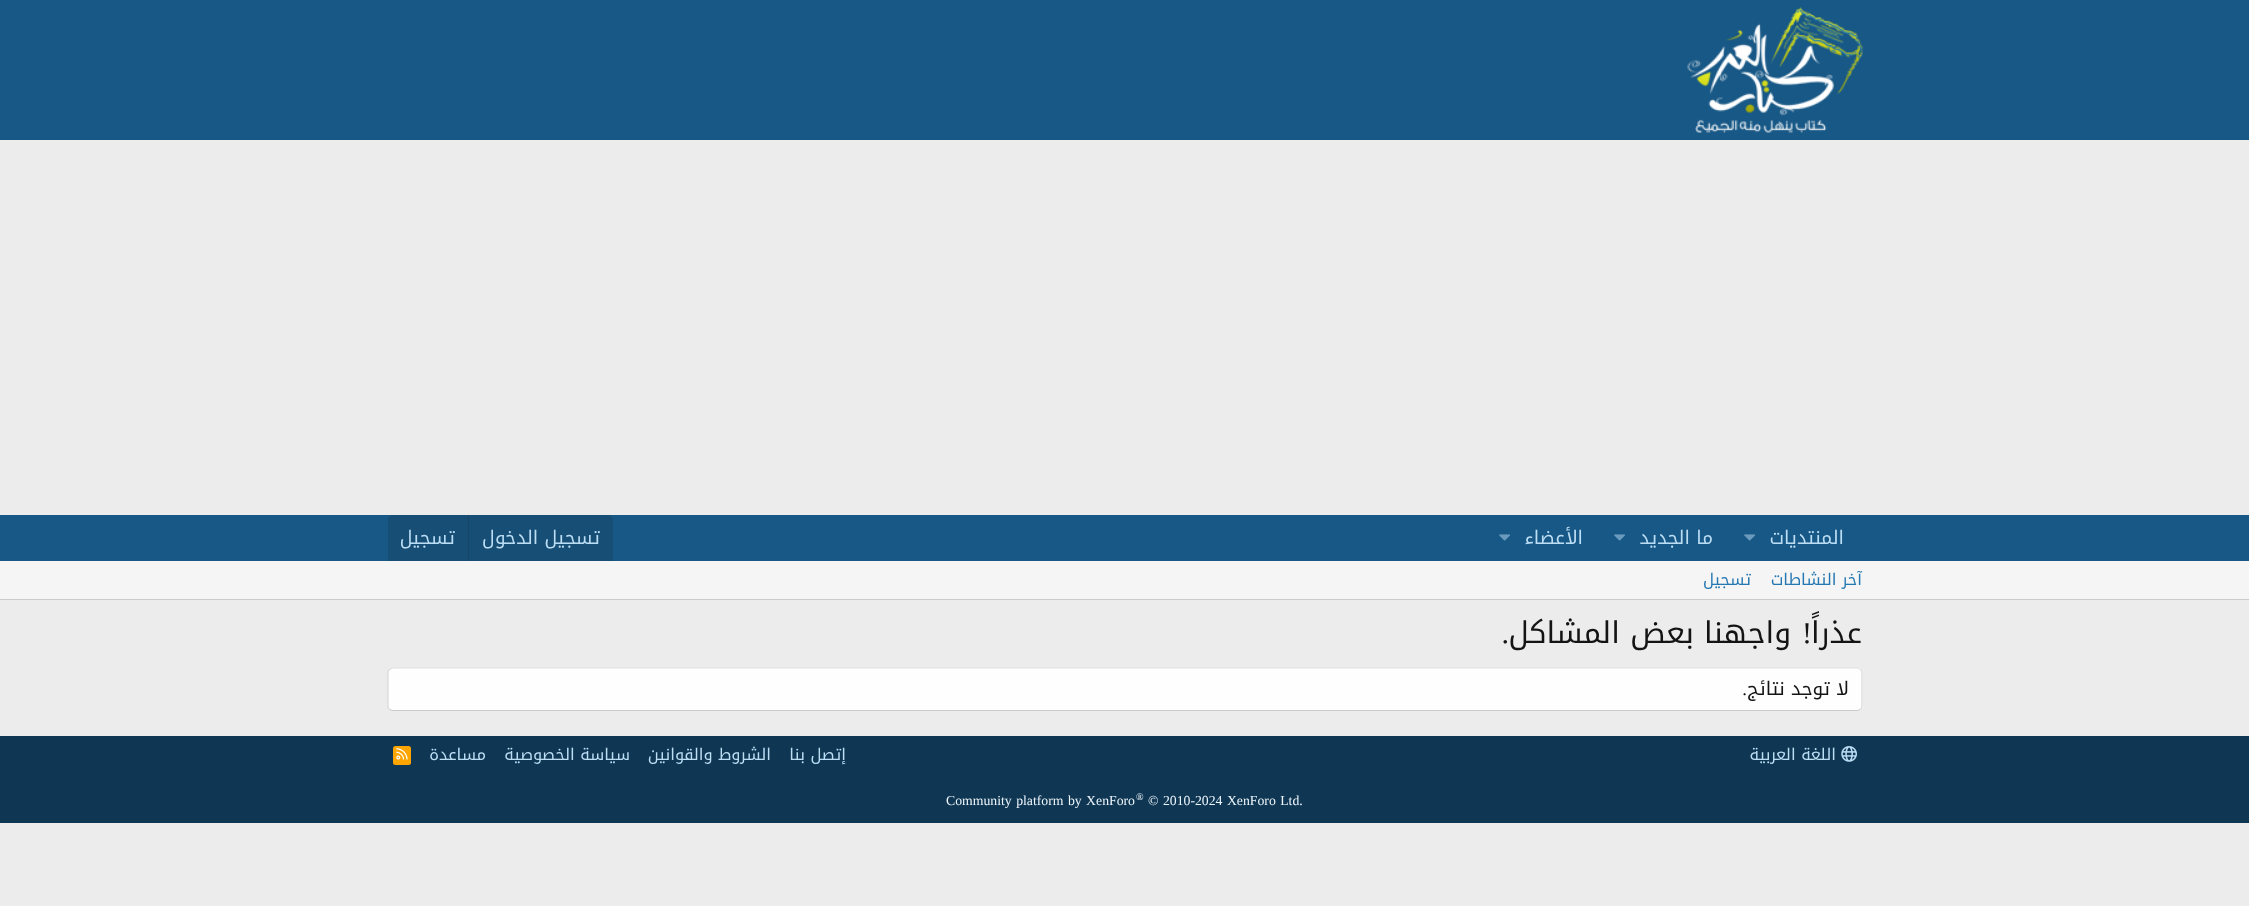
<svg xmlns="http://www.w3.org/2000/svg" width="2249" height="906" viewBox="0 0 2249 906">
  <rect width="100%" height="100%" fill="#ececec"/>
  <rect x="0" y="0" width="2249" height="140" fill="#185886"/>
  <image x="1687" y="7" width="176" height="126" href="img1.png"/>
  <rect x="0" y="515" width="2249" height="46" fill="#185886"/>
  <text x="1844" y="544" font-family="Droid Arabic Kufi" font-size="18.75" direction="rtl" fill="#bcdef5">المنتديات</text>
  <image x="1744" y="534" width="11" height="7" href="img2.png"/>
  <text x="1713" y="544" font-family="Droid Arabic Kufi" font-size="18.75" direction="rtl" fill="#bcdef5">ما الجديد</text>
  <image x="1614" y="534" width="11" height="7" href="img2.png"/>
  <text x="1583" y="544" font-family="Droid Arabic Kufi" font-size="18.75" direction="rtl" fill="#bcdef5">الأعضاء</text>
  <image x="1499" y="534" width="11" height="7" href="img2.png"/>
  <path d="M393 515H608C611 515 613 517 613 520V561H388V520C388 517 390 515 393 515Z" fill="#174e75"/>
  <text x="600" y="544" font-family="Droid Arabic Kufi" font-size="18.75" direction="rtl" fill="#bcdef5">تسجيل الدخول</text>
  <rect x="468" y="515" width="1" height="46" fill="#174566"/>
  <text x="455" y="544" font-family="Droid Arabic Kufi" font-size="18.75" direction="rtl" fill="#bcdef5">تسجيل</text>
  <rect x="0" y="561" width="2249" height="38" fill="#f5f5f5"/>
  <rect x="0" y="599" width="2249" height="1" fill="#cbcbcb"/>
  <text x="1862" y="585" font-family="Droid Arabic Kufi" font-size="16.25" direction="rtl" fill="#2577b1">آخر النشاطات</text>
  <text x="1751" y="585" font-family="Droid Arabic Kufi" font-size="16.25" direction="rtl" fill="#2577b1">تسجيل</text>
  <text x="1862" y="643" font-family="Droid Arabic Kufi" font-size="30" direction="rtl" fill="#141414">عذراً</text>
  <text x="1812" y="643" font-family="Liberation Serif" font-size="30" direction="rtl" fill="#141414">!</text>
  <text x="1791" y="643" font-family="Droid Arabic Kufi" font-size="30" direction="rtl" fill="#141414">واجهنا بعض المشاكل</text>
  <text x="1509" y="643" font-family="Liberation Serif" font-size="30" direction="rtl" fill="#141414">.</text>
  <rect x="388" y="668" width="1475" height="43" rx="5" fill="#fefefe"/>
  <path d="M389.5 669.5L392.5 668H1857.5L1860.5 669.5" fill="none" stroke="#dfdfdf" stroke-width="1.2"/>
  <path d="M1860.5 669.5C1861.5 670 1862 671.5 1862 672.5V706C1862 707.5 1861.5 708.5 1860.5 709.5" fill="none" stroke="#d8d8d8" stroke-width="1.2"/>
  <path d="M1860.5 709.5L1857.5 710.5H392.5L389.5 709.5" fill="none" stroke="#cbcbcb" stroke-width="1.2"/>
  <path d="M389.5 709.5C388.5 708.5 388 707.5 388 706V672.5C388 671.5 388.5 670 389.5 669.5" fill="none" stroke="#d8d8d8" stroke-width="1.2"/>
  <text x="1849" y="695" font-family="Droid Arabic Kufi" font-size="18.75" direction="rtl" fill="#141414">لا توجد نتائج</text>
  <text x="1747" y="695" font-family="Liberation Serif" font-size="18.75" direction="rtl" fill="#141414">.</text>
  <rect x="0" y="736" width="2249" height="87" fill="#0f3652"/>
  <image x="1841" y="746" width="16" height="16" href="img3.png"/>
  <text x="1836" y="760" font-family="Droid Arabic Kufi" font-size="16.25" direction="rtl" fill="#bcdef5">اللغة العربية</text>
  <text x="846" y="760" font-family="Droid Arabic Kufi" font-size="16.25" direction="rtl" fill="#bcdef5">إتصل بنا</text>
  <text x="771" y="760" font-family="Droid Arabic Kufi" font-size="16.25" direction="rtl" fill="#bcdef5">الشروط والقوانين</text>
  <text x="630" y="760" font-family="Droid Arabic Kufi" font-size="16.25" direction="rtl" fill="#bcdef5">سياسة الخصوصية</text>
  <text x="486" y="760" font-family="Droid Arabic Kufi" font-size="16.25" direction="rtl" fill="#bcdef5">مساعدة</text>
  <rect x="393" y="746" width="18" height="19" rx="2.5" fill="#ffa500"/>
  <image x="396" y="748" width="12" height="12" href="img4.png"/>
  <text x="1148" y="805" word-spacing="1" font-family="Liberation Serif" font-size="13.75" fill="#edf6fd">© 2010-2024 XenForo Ltd.</text>
  <text x="1136" y="800" font-family="Liberation Serif" font-size="10" fill="#edf6fd">®</text>
  <text x="946" y="805" word-spacing="1" font-family="Liberation Serif" font-size="13.75" fill="#edf6fd">Community platform by XenForo</text>
</svg>
